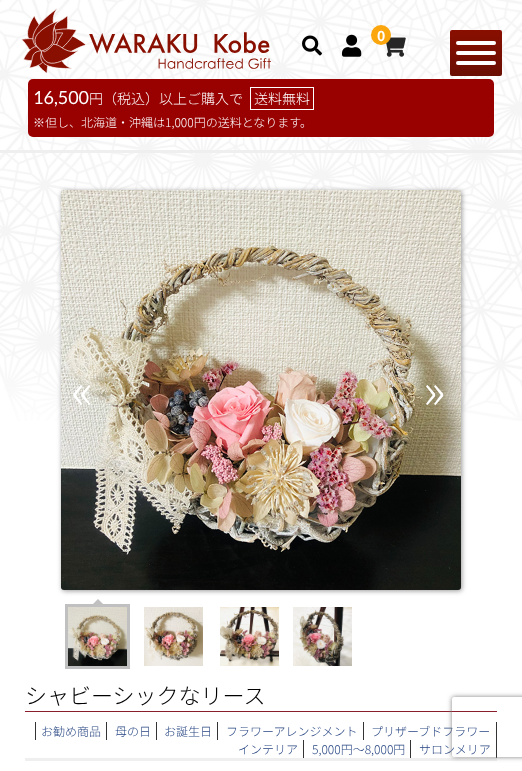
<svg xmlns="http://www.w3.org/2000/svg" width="522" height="771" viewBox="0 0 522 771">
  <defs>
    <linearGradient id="g1" gradientUnits="userSpaceOnUse" x1="476" y1="30" x2="476" y2="76"><stop offset="0" stop-color="#890f00"/><stop offset="1" stop-color="#6a0e03"/></linearGradient>
    <filter id="blur1" x="-50%" y="-200%" width="200%" height="500%"><feGaussianBlur stdDeviation="2.5"/></filter>
    <clipPath id="clip1"><path d="M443 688H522V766H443ZM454 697H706C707 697 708 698 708 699V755C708 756 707 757 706 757H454C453 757 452 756 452 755V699C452 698 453 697 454 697Z" clip-rule="evenodd"/></clipPath>
  </defs>
  <rect width="100%" height="100%" fill="#ffffff"/>
  <image x="0" y="0" width="522" height="421" href="img1.png"/>
  <rect x="0" y="150" width="522" height="3" fill="#efefef"/>
  <image x="21" y="8" width="250" height="65" href="img2.png"/>
  <image x="302" y="35" width="20" height="21" href="img3.png"/>
  <image x="342" y="34" width="20" height="23" href="img4.png"/>
  <image x="386" y="37" width="20" height="20" href="img5.png"/>
  <circle cx="381" cy="35" r="10" fill="#fba60d"/>
  <text x="377" y="41" font-family="Noto Sans JP" font-size="14" font-weight="bold" fill="#ffffff">0</text>
  <rect x="28" y="79" width="466" height="58" rx="5" fill="#990000"/>
  <text x="33" y="104" font-family="Lato" font-size="18" fill="#ffffff">16,500</text>
  <text x="89" y="104" font-family="Noto Sans JP" font-size="14" font-weight="300" fill="#ffffff">円（税込）以上ご購入で</text>
  <rect x="250.5" y="87.5" width="63" height="22" fill="none" stroke="#ffffff"/>
  <text x="254" y="104" font-family="Noto Sans JP" font-size="14" font-weight="300" fill="#ffffff">送料無料</text>
  <text x="33" y="127" font-family="Noto Sans JP" font-size="12" font-weight="300" fill="#ffffff">※但し、北海道・沖縄は1,000円の送料となります。</text>
  <rect x="450" y="30" width="52" height="46" rx="2" fill="url(#g1)"/>
  <rect x="456" y="41" width="40" height="4" rx="2" fill="#ffffff"/>
  <rect x="456" y="51" width="40" height="4" rx="2" fill="#ffffff"/>
  <rect x="456" y="61" width="40" height="4" rx="2" fill="#ffffff"/>
  <rect x="62" y="191" width="400" height="400" rx="3" fill="#000000" fill-opacity="0.4" filter="url(#blur1)"/>
  <image x="61" y="190" width="400" height="400" href="img6.png"/>
  <text x="71" y="409" font-family="Noto Sans JP" font-size="50" font-weight="300" fill="#ffffff">«</text>
  <text x="423" y="409" font-family="Noto Sans JP" font-size="50" font-weight="300" fill="#ffffff">»</text>
  <image x="68" y="607" width="59" height="59" href="img7.png"/>
  <rect x="66.5" y="605.5" width="62" height="62" fill="none" stroke="#c0c0c0" stroke-width="3"/>
  <path d="M103 604H93L98 599Z" fill="#c0c0c0"/>
  <image x="144" y="607" width="59" height="59" href="img8.png"/>
  <image x="220" y="607" width="59" height="59" href="img9.png"/>
  <image x="293" y="607" width="59" height="59" href="img10.png"/>
  <rect x="25" y="758" width="472" height="3" fill="#efefef"/>
  <rect x="25" y="711" width="472" height="1" fill="#8b1e2c"/>
  <text x="25" y="704" font-family="Noto Sans JP" font-size="22" font-weight="300" fill="#000000">シャビーシックなリース</text>
  <rect x="106" y="722" width="1" height="18" fill="#333333"/>
  <rect x="35" y="722" width="1" height="18" fill="#333333"/>
  <text x="41" y="736" font-family="Noto Sans JP" font-size="12" font-weight="300" fill="#284683">お勧め商品</text>
  <rect x="156" y="722" width="1" height="18" fill="#333333"/>
  <text x="115" y="736" font-family="Noto Sans JP" font-size="12" font-weight="300" fill="#284683">母の日</text>
  <rect x="217" y="722" width="1" height="18" fill="#333333"/>
  <text x="164" y="736" font-family="Noto Sans JP" font-size="12" font-weight="300" fill="#284683">お誕生日</text>
  <rect x="363" y="722" width="1" height="18" fill="#333333"/>
  <text x="226" y="736" font-family="Noto Sans JP" font-size="12" font-weight="300" fill="#284683">フラワーアレンジメント</text>
  <rect x="496" y="722" width="1" height="36" fill="#333333"/>
  <text x="371" y="736" font-family="Noto Sans JP" font-size="12" font-weight="300" fill="#284683">プリザーブドフラワー</text>
  <rect x="303" y="740" width="1" height="18" fill="#333333"/>
  <text x="238" y="754" font-family="Noto Sans JP" font-size="12" font-weight="300" fill="#284683">インテリア</text>
  <rect x="410" y="740" width="1" height="18" fill="#333333"/>
  <text x="312" y="754" font-family="Noto Sans JP" font-size="12" font-weight="300" fill="#284683">5,000円～8,000円</text>
  <text x="419" y="754" font-family="Noto Sans JP" font-size="12" font-weight="300" fill="#284683">サロンメリア</text>
  <g clip-path="url(#clip1)">
    <rect x="452" y="697" width="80" height="60" rx="2" fill="#808080" filter="url(#blur1)"/>
  </g>
</svg>
